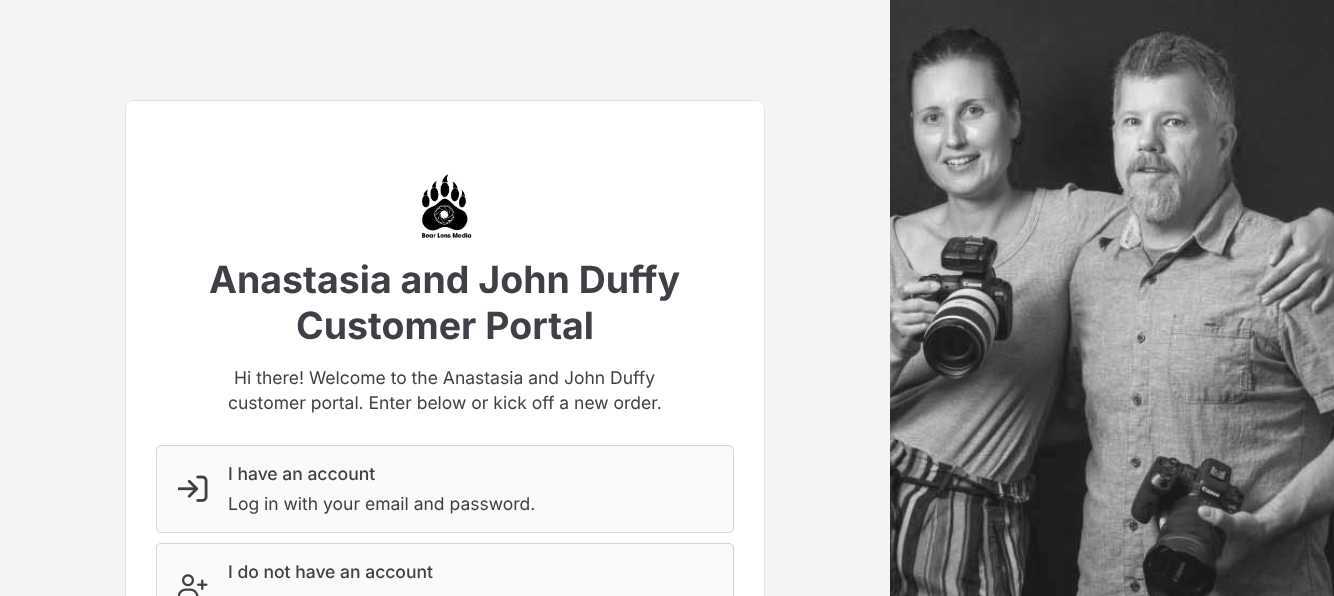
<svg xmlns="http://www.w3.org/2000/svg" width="1334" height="596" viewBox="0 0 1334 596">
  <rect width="100%" height="100%" fill="#f3f4f6"/>
  <path d="M133 100H757C761.5 100 765 103.5 765 108V596H125V108C125 103.5 128.5 100 133 100Z" fill="#ffffff"/>
  <rect x="125.5" y="100.5" width="639" height="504" rx="7.5" fill="none" stroke="#e4e4e7"/>
  <image x="422" y="174" width="50" height="64" href="img1.png"/>
  <text x="209" y="293" font-family="Inter" font-size="37.5" font-weight="bold" fill="#3f3f46">Anastasia and John Duffy</text>
  <text x="296" y="339" font-family="Inter" font-size="37.5" font-weight="bold" fill="#3f3f46">Customer Portal</text>
  <text x="234" y="384" font-family="Inter" font-size="17.5" fill="#3f3f46">Hi there! Welcome to the Anastasia and John Duffy</text>
  <text x="228" y="409" font-family="Inter" font-size="17.5" fill="#3f3f46">customer portal. Enter below or kick off a new order.</text>
  <rect x="156.5" y="445.5" width="577" height="87" rx="4.5" fill="#fafafa" stroke="#d4d4d8"/>
  <image x="178" y="475" width="30" height="27" href="img2.png"/>
  <text x="228" y="480" font-family="Inter" font-size="17.5" font-weight="500" fill="#3f3f46">I have an account</text>
  <text x="228" y="510" font-family="Inter" font-size="17.5" fill="#3f3f46">Log in with your email and password.</text>
  <path d="M161 543H729C732 543 734 545 734 548V596H156V548C156 545 158 543 161 543Z" fill="#fafafa"/>
  <rect x="156.5" y="543.5" width="577" height="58" rx="4.5" fill="none" stroke="#d4d4d8"/>
  <text x="228" y="578" font-family="Inter" font-size="17.5" font-weight="500" fill="#3f3f46">I do not have an account</text>
  <image x="178" y="574" width="30" height="22" href="img3.png"/>
  <image x="890" y="0" width="444" height="596" href="img4.png"/>
</svg>
